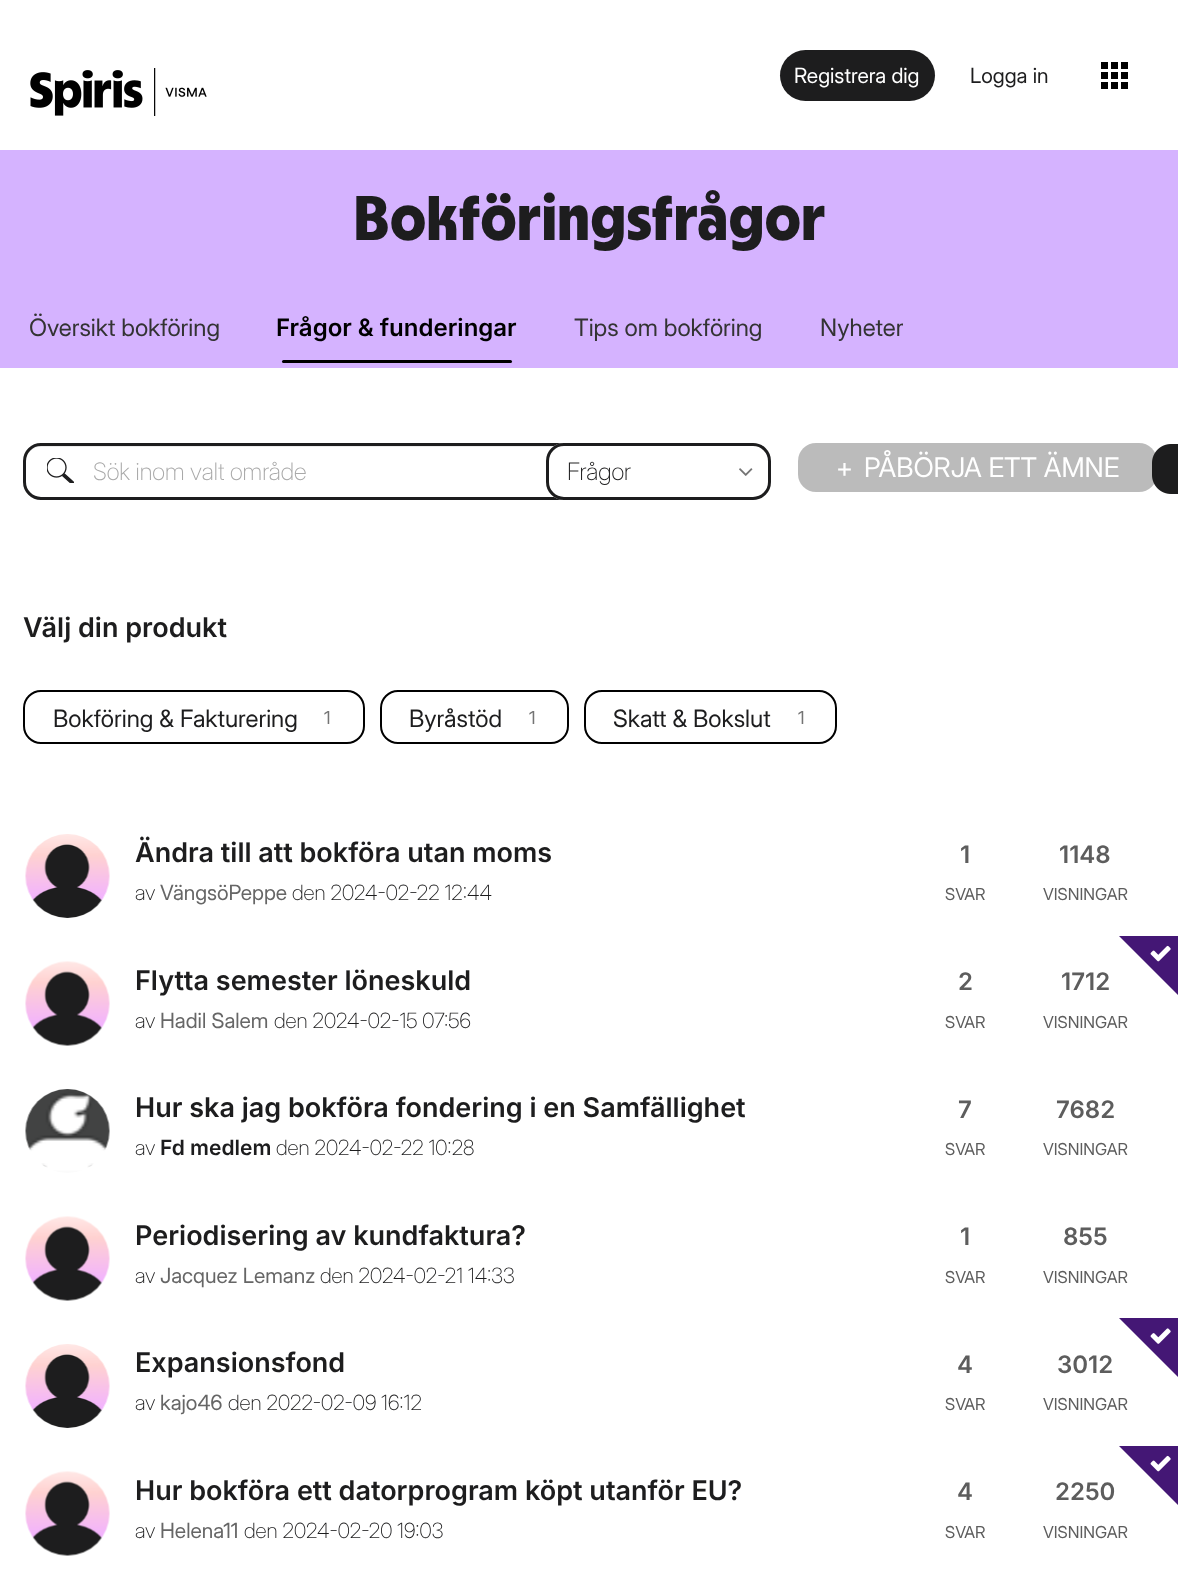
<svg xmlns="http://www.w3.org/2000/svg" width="1178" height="1588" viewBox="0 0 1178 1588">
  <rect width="100%" height="100%" fill="#ffffff"/>
  <image x="30" y="68" width="177" height="48" href="img1.png"/>
  <rect x="780" y="50" width="155" height="51" rx="25.5" fill="#1d1d1e"/>
  <text x="794" y="83" font-family="Inter Display" font-size="21" fill="#ffffff">Registrera dig</text>
  <text x="970" y="83" font-family="Inter Display" font-size="21" fill="#1d1d1e">Logga in</text>
  <image x="1101" y="62" width="27" height="27" href="img2.png"/>
  <rect x="0" y="150" width="1178" height="218" fill="#d5b3ff"/>
  <text x="353" y="240" font-family="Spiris" font-size="63" font-weight="bold" fill="#1d1d1e">Bokföringsfrågor</text>
  <text x="29" y="336" font-family="Inter Display" font-size="24" fill="#333333">Översikt bokföring</text>
  <text x="276" y="336" font-family="Inter" font-size="24" font-weight="600" fill="#000000">Frågor &amp; funderingar</text>
  <rect x="282" y="360" width="230" height="3" rx="1.5" fill="#000000"/>
  <text x="574" y="336" font-family="Inter Display" font-size="24" fill="#333333">Tips om bokföring</text>
  <text x="820" y="336" font-family="Inter Display" font-size="24" fill="#333333">Nyheter</text>
  <path d="M40 447H708C716 447 723 454 723 462V461C723 453 716 446 708 446H41C33 446 26 453 26 461V462C26 454 32 447 40 447Z" fill="#ececec"/>
  <rect x="24.5" y="444.5" width="700" height="54" rx="16.5" fill="none" stroke="#1d1d1e" stroke-width="3"/>
  <image x="47" y="458" width="27" height="25" href="img3.png"/>
  <text x="93" y="480" font-family="Inter Display" font-size="24" font-weight="200" fill="#a9a9a9">Sök inom valt område</text>
  <rect x="546" y="443" width="225" height="57" rx="18" fill="#ffffff"/>
  <image x="739" y="468" width="14" height="8" href="img4.png"/>
  <rect x="547.5" y="444.5" width="222" height="54" rx="16.5" fill="none" stroke="#1d1d1e" stroke-width="3"/>
  <text x="567" y="480" font-family="Inter Display" font-size="24" font-weight="200" fill="#1d1d1e">Frågor</text>
  <image x="1152" y="444" width="26" height="50" href="img5.png"/>
  <rect x="798" y="443" width="359" height="49" rx="18" fill="#1d1d1e" fill-opacity="0.3"/>
  <text x="836" y="477" font-family="Inter Display" font-size="27" fill="#ffffff">+</text>
  <text x="864" y="477" font-family="Inter Display" font-size="27" fill="#ffffff">PÅBÖRJA ETT ÄMNE</text>
  <text x="23" y="637" font-family="Inter" font-size="27" font-weight="600" fill="#1d1d1e">Välj din produkt</text>
  <rect x="24" y="691" width="340" height="52" rx="17" fill="none" stroke="#000000" stroke-width="2"/>
  <text x="53" y="727" font-family="Inter Display" font-size="24" fill="#1d1d1e">Bokföring &amp; Fakturering</text>
  <text x="324" y="724" font-family="Inter Display" font-size="18" fill="#747474">1</text>
  <rect x="381" y="691" width="187" height="52" rx="17" fill="none" stroke="#000000" stroke-width="2"/>
  <text x="409" y="727" font-family="Inter Display" font-size="24" fill="#1d1d1e">Byråstöd</text>
  <text x="529" y="724" font-family="Inter Display" font-size="18" fill="#747474">1</text>
  <rect x="585" y="691" width="251" height="52" rx="17" fill="none" stroke="#000000" stroke-width="2"/>
  <text x="613" y="727" font-family="Inter Display" font-size="24" fill="#1d1d1e">Skatt &amp; Bokslut</text>
  <text x="798" y="724" font-family="Inter Display" font-size="18" fill="#747474">1</text>
  <image x="25" y="834" width="85" height="84" href="img6.png"/>
  <text x="135" y="862" font-family="Inter" font-size="27" font-weight="600" fill="#1d1d1e">Ändra till att bokföra utan moms</text>
  <text x="135" y="900" font-family="Inter Display" font-size="21" font-weight="200" fill="#1d1d1e">av</text>
  <text x="160" y="900" font-family="Inter Display" font-size="21" fill="#666666">VängsöPeppe</text>
  <text x="292" y="900" font-family="Inter Display" font-size="21" font-weight="200" fill="#1d1d1e">den 2024-02-22 12:44</text>
  <text x="960" y="863" font-family="Inter" font-size="24" font-weight="600" fill="#5d5d5d">1</text>
  <text x="945" y="900" font-family="Inter Display" font-size="16.5" fill="#5d5d5d">SVAR</text>
  <text x="1059" y="863" font-family="Inter" font-size="24" font-weight="600" fill="#5d5d5d">1148</text>
  <text x="1043" y="900" font-family="Inter Display" font-size="16.5" fill="#5d5d5d">VISNINGAR</text>
  <image x="25" y="961" width="85" height="85" href="img7.png"/>
  <text x="135" y="990" font-family="Inter" font-size="27" font-weight="600" fill="#1d1d1e">Flytta semester löneskuld</text>
  <text x="135" y="1028" font-family="Inter Display" font-size="21" font-weight="200" fill="#1d1d1e">av</text>
  <text x="160" y="1028" font-family="Inter Display" font-size="21" fill="#666666">Hadil Salem</text>
  <text x="274" y="1028" font-family="Inter Display" font-size="21" font-weight="200" fill="#1d1d1e">den 2024-02-15 07:56</text>
  <text x="958" y="990" font-family="Inter" font-size="24" font-weight="600" fill="#5d5d5d">2</text>
  <text x="945" y="1028" font-family="Inter Display" font-size="16.5" fill="#5d5d5d">SVAR</text>
  <text x="1061" y="990" font-family="Inter" font-size="24" font-weight="600" fill="#5d5d5d">1712</text>
  <text x="1043" y="1028" font-family="Inter Display" font-size="16.5" fill="#5d5d5d">VISNINGAR</text>
  <path d="M1119 936H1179V996Z" fill="#441775"/>
  <image x="1150" y="945" width="21" height="17" href="img8.png"/>
  <image x="25" y="1089" width="85" height="84" href="img9.png"/>
  <text x="135" y="1117" font-family="Inter" font-size="27" font-weight="600" fill="#1d1d1e">Hur ska jag bokföra fondering i en Samfällighet</text>
  <text x="135" y="1155" font-family="Inter Display" font-size="21" font-weight="200" fill="#1d1d1e">av</text>
  <text x="160" y="1155" font-family="Inter" font-size="21" font-weight="600" fill="#1d1d1e">Fd medlem</text>
  <text x="276" y="1155" font-family="Inter Display" font-size="21" font-weight="200" fill="#1d1d1e">den 2024-02-22 10:28</text>
  <text x="958" y="1118" font-family="Inter" font-size="24" font-weight="600" fill="#5d5d5d">7</text>
  <text x="945" y="1155" font-family="Inter Display" font-size="16.5" fill="#5d5d5d">SVAR</text>
  <text x="1056" y="1118" font-family="Inter" font-size="24" font-weight="600" fill="#5d5d5d">7682</text>
  <text x="1043" y="1155" font-family="Inter Display" font-size="16.5" fill="#5d5d5d">VISNINGAR</text>
  <image x="25" y="1216" width="85" height="85" href="img7.png"/>
  <text x="135" y="1245" font-family="Inter" font-size="27" font-weight="600" fill="#1d1d1e">Periodisering av kundfaktura?</text>
  <text x="135" y="1283" font-family="Inter Display" font-size="21" font-weight="200" fill="#1d1d1e">av</text>
  <text x="160" y="1283" font-family="Inter Display" font-size="21" fill="#666666">Jacquez Lemanz</text>
  <text x="320" y="1283" font-family="Inter Display" font-size="21" font-weight="200" fill="#1d1d1e">den 2024-02-21 14:33</text>
  <text x="960" y="1245" font-family="Inter" font-size="24" font-weight="600" fill="#5d5d5d">1</text>
  <text x="945" y="1283" font-family="Inter Display" font-size="16.5" fill="#5d5d5d">SVAR</text>
  <text x="1063" y="1245" font-family="Inter" font-size="24" font-weight="600" fill="#5d5d5d">855</text>
  <text x="1043" y="1283" font-family="Inter Display" font-size="16.5" fill="#5d5d5d">VISNINGAR</text>
  <image x="25" y="1344" width="85" height="84" href="img6.png"/>
  <text x="135" y="1372" font-family="Inter" font-size="27" font-weight="600" fill="#1d1d1e">Expansionsfond</text>
  <text x="135" y="1410" font-family="Inter Display" font-size="21" font-weight="200" fill="#1d1d1e">av</text>
  <text x="160" y="1410" font-family="Inter Display" font-size="21" fill="#666666">kajo46</text>
  <text x="228" y="1410" font-family="Inter Display" font-size="21" font-weight="200" fill="#1d1d1e">den 2022-02-09 16:12</text>
  <text x="957" y="1373" font-family="Inter" font-size="24" font-weight="600" fill="#5d5d5d">4</text>
  <text x="945" y="1410" font-family="Inter Display" font-size="16.5" fill="#5d5d5d">SVAR</text>
  <text x="1057" y="1373" font-family="Inter" font-size="24" font-weight="600" fill="#5d5d5d">3012</text>
  <text x="1043" y="1410" font-family="Inter Display" font-size="16.5" fill="#5d5d5d">VISNINGAR</text>
  <path d="M1119 1318H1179V1378Z" fill="#441775"/>
  <image x="1150" y="1328" width="21" height="16" href="img10.png"/>
  <image x="25" y="1471" width="85" height="85" href="img7.png"/>
  <text x="135" y="1500" font-family="Inter" font-size="27" font-weight="600" fill="#1d1d1e">Hur bokföra ett datorprogram köpt utanför EU?</text>
  <text x="135" y="1538" font-family="Inter Display" font-size="21" font-weight="200" fill="#1d1d1e">av</text>
  <text x="160" y="1538" font-family="Inter Display" font-size="21" fill="#666666">Helena11</text>
  <text x="244" y="1538" font-family="Inter Display" font-size="21" font-weight="200" fill="#1d1d1e">den 2024-02-20 19:03</text>
  <text x="957" y="1500" font-family="Inter" font-size="24" font-weight="600" fill="#5d5d5d">4</text>
  <text x="945" y="1538" font-family="Inter Display" font-size="16.5" fill="#5d5d5d">SVAR</text>
  <text x="1055" y="1500" font-family="Inter" font-size="24" font-weight="600" fill="#5d5d5d">2250</text>
  <text x="1043" y="1538" font-family="Inter Display" font-size="16.5" fill="#5d5d5d">VISNINGAR</text>
  <path d="M1119 1446H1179V1506Z" fill="#441775"/>
  <image x="1150" y="1455" width="21" height="17" href="img8.png"/>
</svg>
